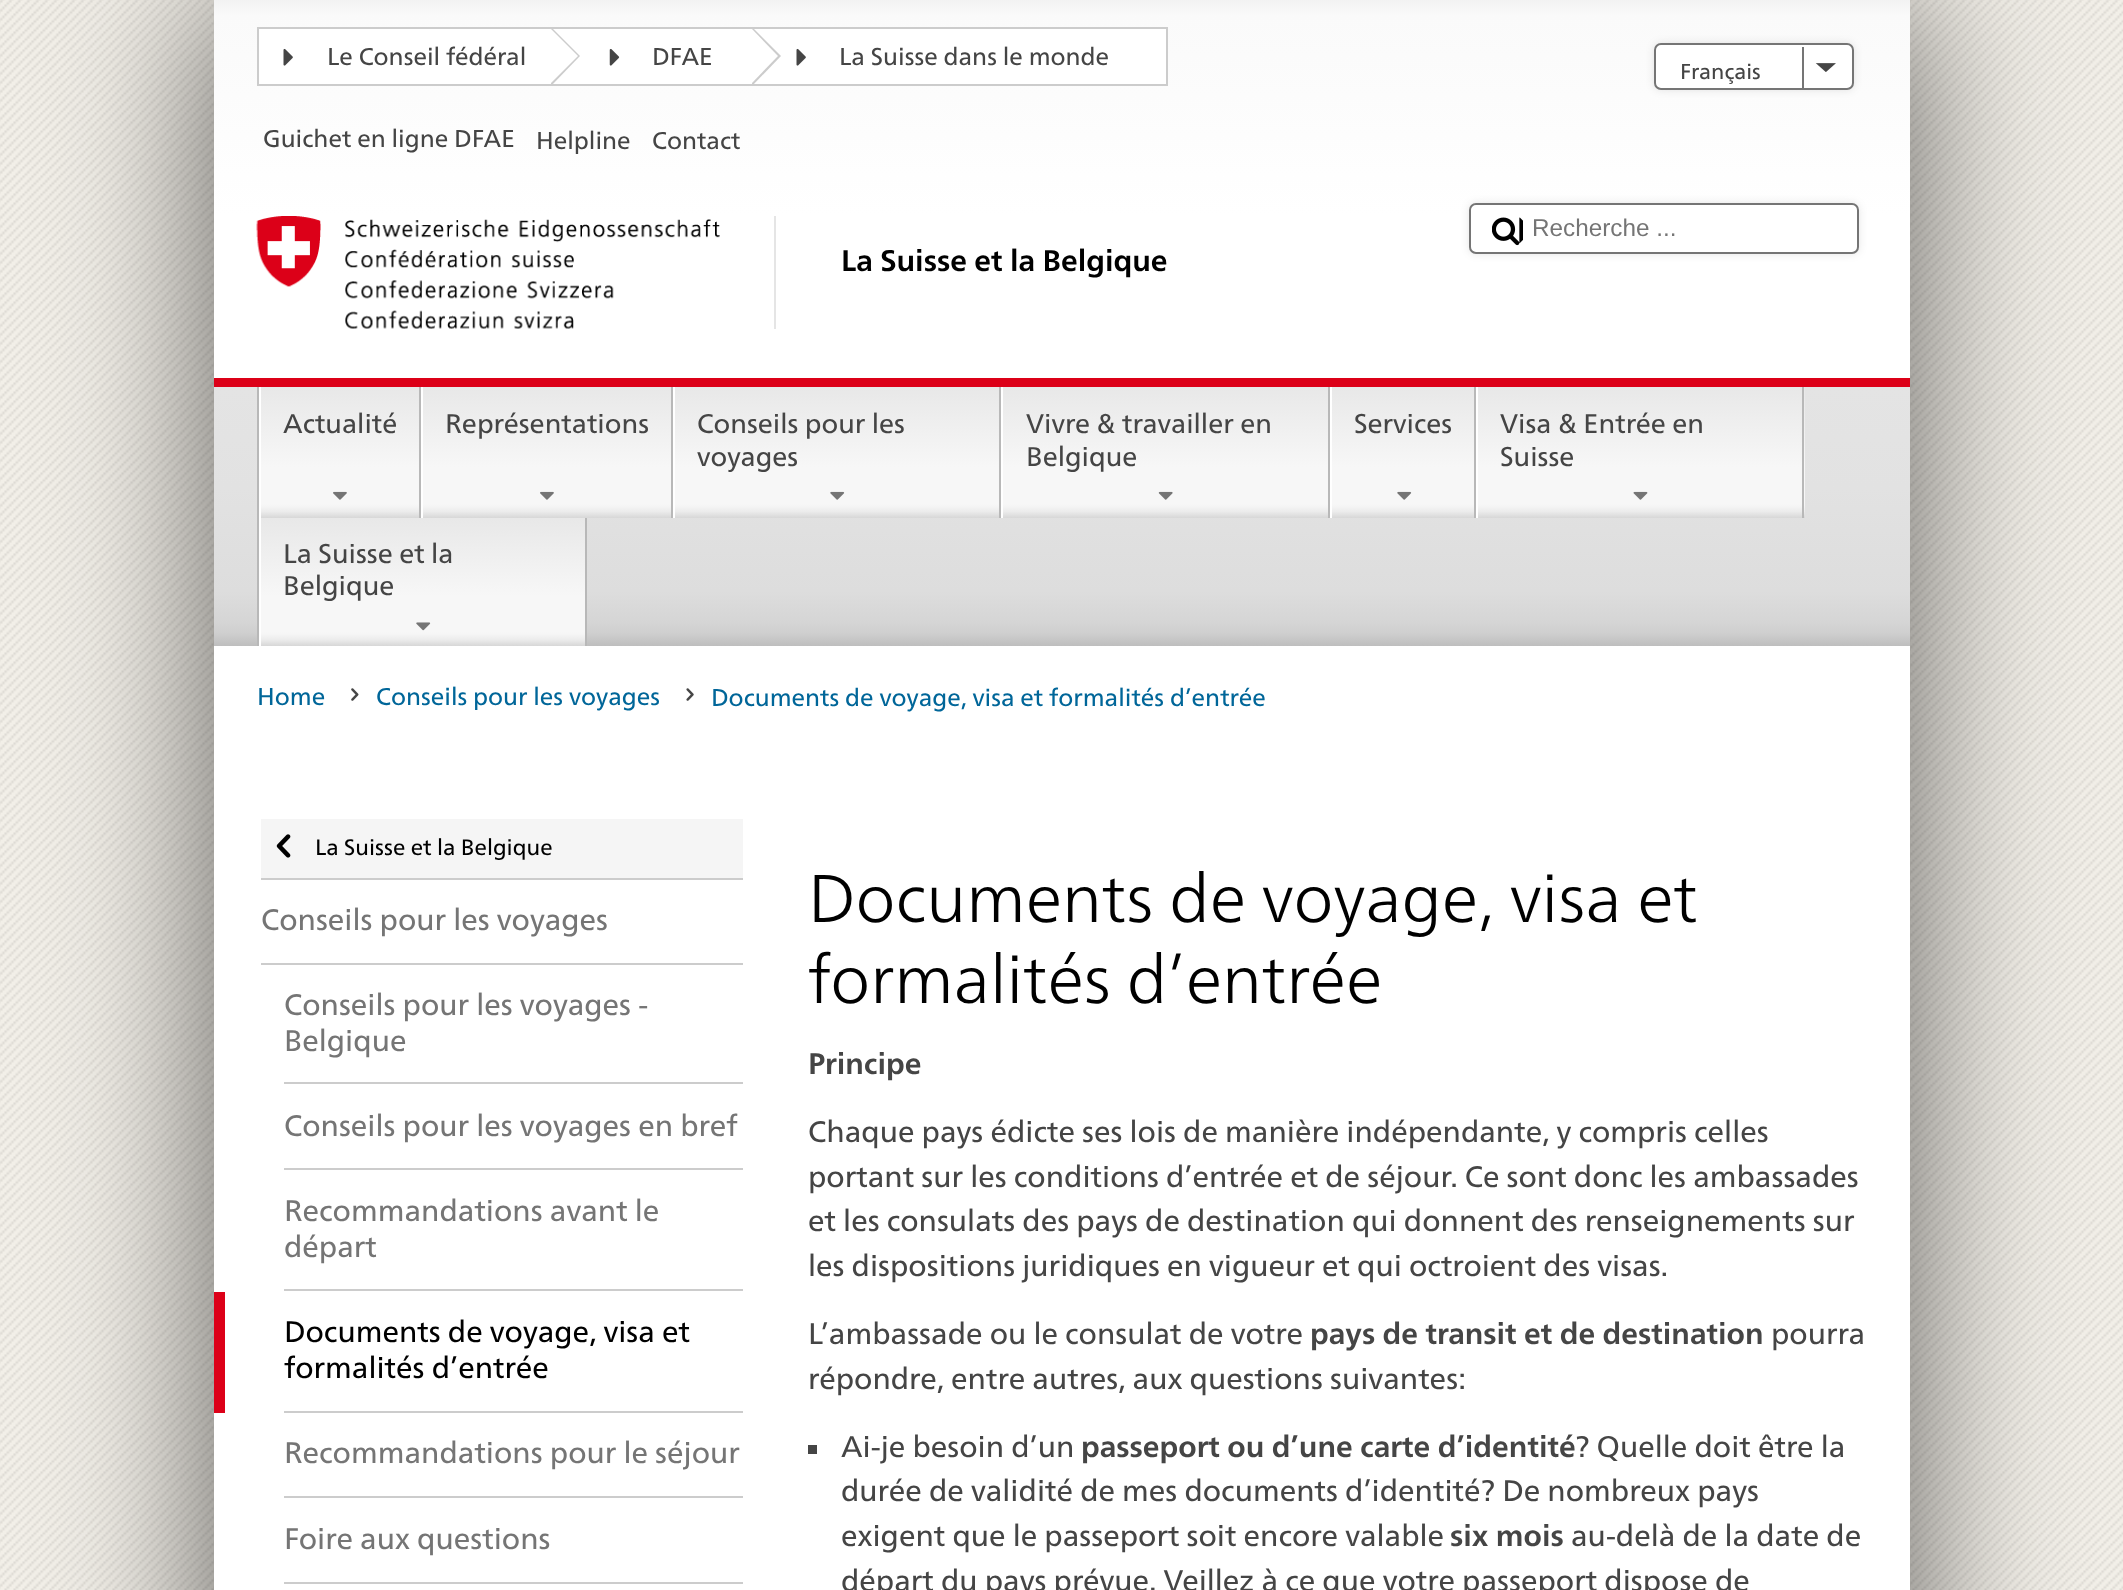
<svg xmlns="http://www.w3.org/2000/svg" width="2123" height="1590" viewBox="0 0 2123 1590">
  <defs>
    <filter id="blur1" x="-50%" y="-200%" width="200%" height="500%"><feGaussianBlur stdDeviation="81"/></filter>
    <linearGradient id="g1" gradientUnits="userSpaceOnUse" x1="1062" y1="0" x2="1062" y2="216"><stop offset="0" stop-color="#f2f2f2"/><stop offset="0.07" stop-color="#fafafa"/><stop offset="1" stop-color="#ffffff"/></linearGradient>
    <filter id="blur2" x="-50%" y="-200%" width="200%" height="500%"><feGaussianBlur stdDeviation="4.5"/></filter>
    <linearGradient id="g2" gradientUnits="userSpaceOnUse" x1="1062" y1="387" x2="1062" y2="646"><stop offset="0" stop-color="#e4e4e4"/><stop offset="0.39" stop-color="#e2e2e2"/><stop offset="0.79" stop-color="#dddddd"/><stop offset="0.91" stop-color="#d5d5d5"/><stop offset="0.95" stop-color="#cfcfcf"/><stop offset="1" stop-color="#bebebe"/></linearGradient>
    <linearGradient id="g3" gradientUnits="userSpaceOnUse" x1="340" y1="387" x2="340" y2="518"><stop offset="0" stop-color="#e8e8e8"/><stop offset="0.61" stop-color="#f7f7f7"/><stop offset="0.89" stop-color="#f7f7f7"/><stop offset="0.91" stop-color="#f5f5f5"/><stop offset="0.95" stop-color="#ececec"/><stop offset="1" stop-color="#d7d7d7"/></linearGradient>
    <linearGradient id="g4" gradientUnits="userSpaceOnUse" x1="547" y1="387" x2="547" y2="518"><stop offset="0" stop-color="#e8e8e8"/><stop offset="0.61" stop-color="#f7f7f7"/><stop offset="0.89" stop-color="#f7f7f7"/><stop offset="0.91" stop-color="#f5f5f5"/><stop offset="0.95" stop-color="#ececec"/><stop offset="1" stop-color="#d7d7d7"/></linearGradient>
    <linearGradient id="g5" gradientUnits="userSpaceOnUse" x1="837" y1="387" x2="837" y2="518"><stop offset="0" stop-color="#e8e8e8"/><stop offset="0.61" stop-color="#f7f7f7"/><stop offset="0.89" stop-color="#f7f7f7"/><stop offset="0.91" stop-color="#f5f5f5"/><stop offset="0.95" stop-color="#ececec"/><stop offset="1" stop-color="#d7d7d7"/></linearGradient>
    <linearGradient id="g6" gradientUnits="userSpaceOnUse" x1="1166" y1="387" x2="1166" y2="518"><stop offset="0" stop-color="#e8e8e8"/><stop offset="0.61" stop-color="#f7f7f7"/><stop offset="0.89" stop-color="#f7f7f7"/><stop offset="0.91" stop-color="#f5f5f5"/><stop offset="0.95" stop-color="#ececec"/><stop offset="1" stop-color="#d7d7d7"/></linearGradient>
    <linearGradient id="g7" gradientUnits="userSpaceOnUse" x1="1403" y1="387" x2="1403" y2="518"><stop offset="0" stop-color="#e8e8e8"/><stop offset="0.61" stop-color="#f7f7f7"/><stop offset="0.89" stop-color="#f7f7f7"/><stop offset="0.91" stop-color="#f5f5f5"/><stop offset="0.95" stop-color="#ececec"/><stop offset="1" stop-color="#d7d7d7"/></linearGradient>
    <linearGradient id="g8" gradientUnits="userSpaceOnUse" x1="1640" y1="387" x2="1640" y2="518"><stop offset="0" stop-color="#e8e8e8"/><stop offset="0.61" stop-color="#f7f7f7"/><stop offset="0.89" stop-color="#f7f7f7"/><stop offset="0.91" stop-color="#f5f5f5"/><stop offset="0.95" stop-color="#ececec"/><stop offset="1" stop-color="#d7d7d7"/></linearGradient>
    <linearGradient id="g9" gradientUnits="userSpaceOnUse" x1="423" y1="518" x2="423" y2="646"><stop offset="0" stop-color="#e8e8e8"/><stop offset="0.61" stop-color="#f7f7f7"/><stop offset="0.89" stop-color="#f7f7f7"/><stop offset="0.91" stop-color="#f5f5f5"/><stop offset="0.95" stop-color="#ececec"/><stop offset="1" stop-color="#d7d7d7"/></linearGradient>
  </defs>
  <rect width="100%" height="100%" fill="#ffffff"/>
  <image x="0" y="0" width="2123" height="1590" href="img1.png"/>
  <rect x="214" y="0" width="1696" height="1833" fill="#000000" fill-opacity="0.6" filter="url(#blur1)"/>
  <rect x="214" y="216" width="1696" height="1374" fill="#ffffff"/>
  <rect x="214" y="0" width="1696" height="216" fill="url(#g1)"/>
  <rect x="258" y="28" width="909" height="57" fill="#ffffff" stroke="#cccccc" stroke-width="2"/>
  <path d="M551 86V27L580 56Z" fill="#cccccc"/>
  <image x="283" y="48" width="10" height="18" href="img2.png"/>
  <text x="327" y="65" font-family="'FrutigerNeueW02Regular'" font-size="24.3" fill="#454545">Le Conseil fédéral</text>
  <path d="M551 83V29L578 56Z" fill="#ffffff"/>
  <path d="M752 86V27L781 56Z" fill="#cccccc"/>
  <image x="609" y="48" width="11" height="18" href="img3.png"/>
  <text x="652" y="65" font-family="'FrutigerNeueW02Regular'" font-size="24.3" fill="#454545">DFAE</text>
  <path d="M752 83V29L778 56Z" fill="#ffffff"/>
  <image x="796" y="48" width="10" height="18" href="img2.png"/>
  <text x="839" y="65" font-family="'FrutigerNeueW02Regular'" font-size="24.3" fill="#454545">La Suisse dans le monde</text>
  <rect x="1654" y="43" width="200" height="47" rx="7" fill="#000000" fill-opacity="0.1" filter="url(#blur2)"/>
  <rect x="1655" y="44" width="198" height="45" rx="6" fill="#ffffff" stroke="#757575" stroke-width="2"/>
  <text x="1680" y="79" font-family="'FrutigerNeueW02Regular'" font-size="21.5" fill="#454545">Français</text>
  <image x="1815" y="63" width="21" height="9" href="img4.png"/>
  <rect x="1802" y="47" width="2" height="41" fill="#757575"/>
  <text x="263" y="147" font-family="'FrutigerNeueW02Regular'" font-size="24.3" fill="#454545">Guichet en ligne DFAE</text>
  <text x="536" y="149" font-family="'FrutigerNeueW02Regular'" font-size="24.3" fill="#454545">Helpline</text>
  <text x="652" y="149" font-family="'FrutigerNeueW02Regular'" font-size="24.3" fill="#454545">Contact</text>
  <rect x="1469" y="203" width="390" height="51" rx="7" fill="#000000" fill-opacity="0.1" filter="url(#blur2)"/>
  <rect x="1470" y="204" width="388" height="49" rx="6" fill="#ffffff" stroke="#757575" stroke-width="2"/>
  <image x="1492" y="217" width="31" height="29" href="img5.png"/>
  <text x="1532" y="236" font-family="Liberation Sans" font-size="24.3" fill="#757575">Recherche ...</text>
  <image x="256" y="216" width="464" height="113" href="img6.png"/>
  <rect x="774" y="216" width="2" height="113" fill="#e5e5e5"/>
  <text x="841" y="271" font-family="'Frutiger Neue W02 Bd'" font-size="29.7" font-weight="bold" fill="#000000">La Suisse et la Belgique</text>
  <rect x="214" y="387" width="1696" height="259" fill="url(#g2)"/>
  <rect x="214" y="378" width="1696" height="9" fill="#dc0018"/>
  <rect x="257" y="387" width="2" height="259" fill="#b8b8b8"/>
  <rect x="261" y="387" width="158" height="131" fill="url(#g3)"/>
  <rect x="419" y="387" width="2" height="131" fill="#b8b8b8"/>
  <rect x="259" y="387" width="2" height="259" fill="#ffffff"/>
  <text x="283" y="433" font-family="'FrutigerNeueW02Regular'" font-size="27" fill="#454545">Actualité</text>
  <image x="333" y="491" width="14" height="9" href="img7.png"/>
  <rect x="423" y="387" width="248" height="131" fill="url(#g4)"/>
  <rect x="671" y="387" width="2" height="131" fill="#b8b8b8"/>
  <rect x="421" y="387" width="2" height="131" fill="#ffffff"/>
  <text x="445" y="433" font-family="'FrutigerNeueW02Regular'" font-size="27" fill="#454545">Représentations</text>
  <image x="540" y="491" width="14" height="9" href="img7.png"/>
  <rect x="675" y="387" width="324" height="131" fill="url(#g5)"/>
  <rect x="999" y="387" width="2" height="131" fill="#b8b8b8"/>
  <rect x="673" y="387" width="2" height="131" fill="#ffffff"/>
  <text x="697" y="433" font-family="'FrutigerNeueW02Regular'" font-size="27" fill="#454545">Conseils pour les</text>
  <text x="697" y="466" font-family="'FrutigerNeueW02Regular'" font-size="27" fill="#454545">voyages</text>
  <image x="830" y="491" width="15" height="9" href="img8.png"/>
  <rect x="1003" y="387" width="325" height="131" fill="url(#g6)"/>
  <rect x="1328" y="387" width="2" height="131" fill="#b8b8b8"/>
  <rect x="1001" y="387" width="2" height="131" fill="#ffffff"/>
  <text x="1026" y="433" font-family="'FrutigerNeueW02Regular'" font-size="27" fill="#454545">Vivre &amp; travailler en</text>
  <text x="1026" y="466" font-family="'FrutigerNeueW02Regular'" font-size="27" fill="#454545">Belgique</text>
  <image x="1158" y="491" width="15" height="9" href="img9.png"/>
  <rect x="1332" y="387" width="142" height="131" fill="url(#g7)"/>
  <rect x="1474" y="387" width="2" height="131" fill="#b8b8b8"/>
  <rect x="1330" y="387" width="2" height="131" fill="#ffffff"/>
  <text x="1354" y="433" font-family="'FrutigerNeueW02Regular'" font-size="27" fill="#454545">Services</text>
  <image x="1397" y="491" width="15" height="9" href="img8.png"/>
  <rect x="1478" y="387" width="327" height="131" fill="url(#g8)"/>
  <rect x="1802" y="387" width="2" height="131" fill="#b8b8b8"/>
  <rect x="1476" y="387" width="2" height="131" fill="#ffffff"/>
  <text x="1500" y="433" font-family="'FrutigerNeueW02Regular'" font-size="27" fill="#454545">Visa &amp; Entrée en</text>
  <text x="1500" y="466" font-family="'FrutigerNeueW02Regular'" font-size="27" fill="#454545">Suisse</text>
  <image x="1633" y="491" width="15" height="9" href="img10.png"/>
  <rect x="261" y="518" width="324" height="128" fill="url(#g9)"/>
  <rect x="585" y="518" width="2" height="128" fill="#b8b8b8"/>
  <text x="283" y="563" font-family="'FrutigerNeueW02Regular'" font-size="27" fill="#454545">La Suisse et la</text>
  <text x="283" y="595" font-family="'FrutigerNeueW02Regular'" font-size="27" fill="#454545">Belgique</text>
  <image x="416" y="622" width="15" height="9" href="img11.png"/>
  <text x="257" y="705" font-family="'FrutigerNeueW02Regular'" font-size="24.3" fill="#006699">Home</text>
  <image x="351" y="688" width="8" height="13" href="img12.png"/>
  <text x="376" y="705" font-family="'FrutigerNeueW02Regular'" font-size="24.3" fill="#006699">Conseils pour les voyages</text>
  <image x="686" y="688" width="8" height="13" href="img13.png"/>
  <text x="711" y="706" font-family="'FrutigerNeueW02Regular'" font-size="24.3" fill="#006699">Documents de voyage, visa et formalités d’entrée</text>
  <rect x="261" y="819" width="482" height="59" fill="#f5f5f5"/>
  <rect x="261" y="878" width="482" height="2" fill="#cccccc"/>
  <image x="276" y="834" width="15" height="24" href="img14.png"/>
  <text x="315" y="855" font-family="'FrutigerNeueW02Regular'" font-size="22.25" fill="#000000">La Suisse et la Belgique</text>
  <rect x="261" y="963" width="482" height="2" fill="#cccccc"/>
  <text x="261" y="930" font-family="'FrutigerNeueW02Regular'" font-size="29.7" fill="#757575">Conseils pour les voyages</text>
  <rect x="284" y="1082" width="459" height="2" fill="#cccccc"/>
  <text x="284" y="1015" font-family="'FrutigerNeueW02Regular'" font-size="29.7" fill="#757575">Conseils pour les voyages -</text>
  <text x="284" y="1051" font-family="'FrutigerNeueW02Regular'" font-size="29.7" fill="#757575">Belgique</text>
  <rect x="284" y="1168" width="459" height="2" fill="#cccccc"/>
  <text x="284" y="1136" font-family="'FrutigerNeueW02Regular'" font-size="29.7" fill="#757575">Conseils pour les voyages en bref</text>
  <rect x="284" y="1289" width="459" height="2" fill="#cccccc"/>
  <text x="284" y="1221" font-family="'FrutigerNeueW02Regular'" font-size="29.7" fill="#757575">Recommandations avant le</text>
  <text x="284" y="1257" font-family="'FrutigerNeueW02Regular'" font-size="29.7" fill="#757575">départ</text>
  <rect x="214" y="1292" width="11" height="121" fill="#dc0018"/>
  <rect x="284" y="1411" width="459" height="2" fill="#cccccc"/>
  <text x="284" y="1342" font-family="'FrutigerNeueW02Regular'" font-size="29.7" fill="#000000">Documents de voyage, visa et</text>
  <text x="284" y="1378" font-family="'FrutigerNeueW02Regular'" font-size="29.7" fill="#000000">formalités d’entrée</text>
  <rect x="284" y="1496" width="459" height="2" fill="#cccccc"/>
  <text x="284" y="1463" font-family="'FrutigerNeueW02Regular'" font-size="29.7" fill="#757575">Recommandations pour le séjour</text>
  <rect x="284" y="1582" width="459" height="2" fill="#cccccc"/>
  <text x="284" y="1549" font-family="'FrutigerNeueW02Regular'" font-size="29.7" fill="#757575">Foire aux questions</text>
  <text x="808" y="922" font-family="'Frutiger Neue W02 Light'" font-size="67.5" font-weight="300" fill="#000000">Documents de voyage, visa et</text>
  <text x="808" y="1003" font-family="'Frutiger Neue W02 Light'" font-size="67.5" font-weight="300" fill="#000000">formalités d’entrée</text>
  <text x="808" y="1074" font-family="'Frutiger Neue W02 Bd'" font-size="29.7" font-weight="bold" fill="#454545">Principe</text>
  <text x="808" y="1142" font-family="'FrutigerNeueW02Regular'" font-size="29.7" fill="#454545">Chaque pays édicte ses lois de manière indépendante, y compris celles</text>
  <text x="808" y="1187" font-family="'FrutigerNeueW02Regular'" font-size="29.7" fill="#454545">portant sur les conditions d’entrée et de séjour. Ce sont donc les ambassades</text>
  <text x="808" y="1231" font-family="'FrutigerNeueW02Regular'" font-size="29.7" fill="#454545">et les consulats des pays de destination qui donnent des renseignements sur</text>
  <text x="808" y="1276" font-family="'FrutigerNeueW02Regular'" font-size="29.7" fill="#454545">les dispositions juridiques en vigueur et qui octroient des visas.</text>
  <text x="808" y="1344" font-family="'FrutigerNeueW02Regular'" font-size="29.7" fill="#454545">L’ambassade ou le consulat de votre</text>
  <text x="1310" y="1344" font-family="'Frutiger Neue W02 Bd'" font-size="29.7" font-weight="bold" fill="#454545">pays de transit et de destination</text>
  <text x="1771" y="1344" font-family="'FrutigerNeueW02Regular'" font-size="29.7" fill="#454545">pourra</text>
  <text x="808" y="1389" font-family="'FrutigerNeueW02Regular'" font-size="29.7" fill="#454545">répondre, entre autres, aux questions suivantes:</text>
  <rect x="808" y="1445" width="9" height="9" fill="#454545"/>
  <text x="841" y="1457" font-family="'FrutigerNeueW02Regular'" font-size="29.7" fill="#454545">Ai-je besoin d’un</text>
  <text x="1081" y="1457" font-family="'Frutiger Neue W02 Bd'" font-size="29.7" font-weight="bold" fill="#454545">passeport ou d’une carte d’identité</text>
  <text x="1575" y="1457" font-family="'FrutigerNeueW02Regular'" font-size="29.7" fill="#454545">? Quelle doit être la</text>
  <text x="841" y="1501" font-family="'FrutigerNeueW02Regular'" font-size="29.7" fill="#454545">durée de validité de mes documents d’identité? De nombreux pays</text>
  <text x="841" y="1546" font-family="'FrutigerNeueW02Regular'" font-size="29.7" fill="#454545">exigent que le passeport soit encore valable</text>
  <text x="1450" y="1546" font-family="'Frutiger Neue W02 Bd'" font-size="29.7" font-weight="bold" fill="#454545">six mois</text>
  <text x="1571" y="1546" font-family="'FrutigerNeueW02Regular'" font-size="29.7" fill="#454545">au-delà de la date de</text>
  <text x="841" y="1591" font-family="'FrutigerNeueW02Regular'" font-size="29.7" fill="#454545">départ du pays prévue. Veillez à ce que votre passeport dispose de</text>
</svg>
